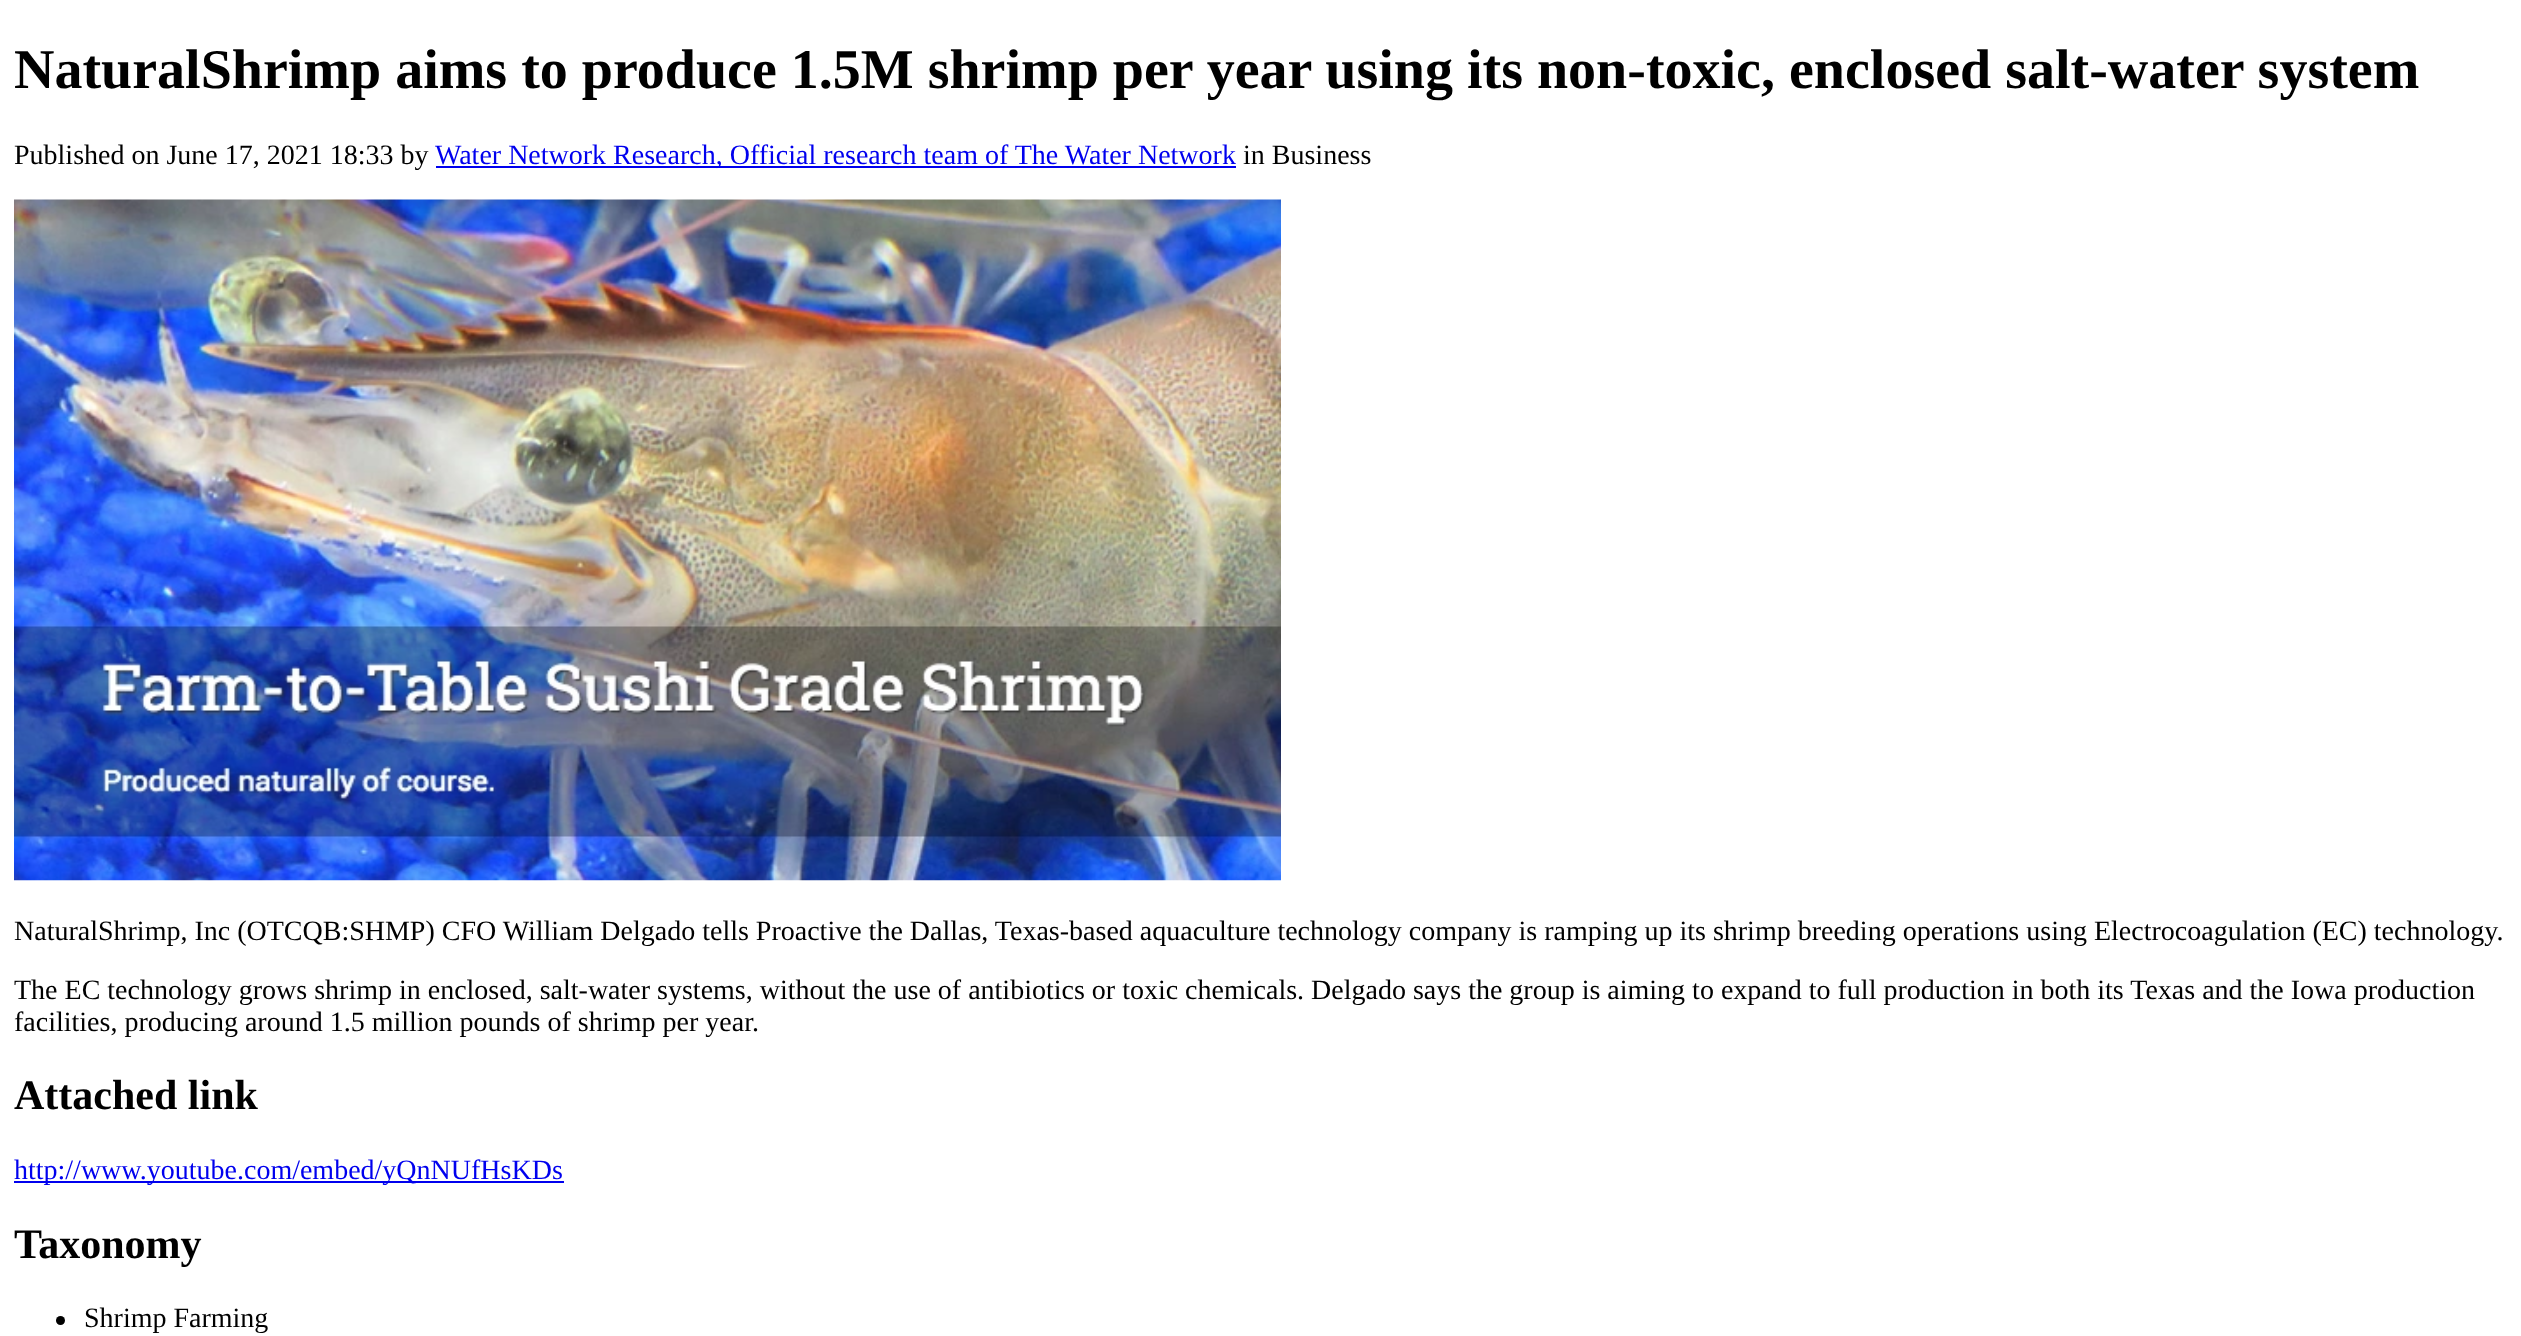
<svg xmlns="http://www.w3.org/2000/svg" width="2521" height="1336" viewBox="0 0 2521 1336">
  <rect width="100%" height="100%" fill="#ffffff"/>
  <text x="14" y="88" font-family="Liberation Serif" font-size="56" font-weight="bold" fill="#000000">NaturalShrimp aims to produce 1.5M shrimp per year using its non-toxic, enclosed salt-water system</text>
  <text x="14" y="164" font-family="Liberation Serif" font-size="28" fill="#000000">Published on June 17, 2021 18:33 by</text>
  <rect x="436" y="166" width="800" height="2" fill="#0000ee"/>
  <text x="435" y="164" font-family="Liberation Serif" font-size="28" fill="#0000ee">Water Network Research, Official research team of The Water Network</text>
  <text x="1243" y="164" font-family="Liberation Serif" font-size="28" fill="#000000">in Business</text>
  <image x="14" y="199" width="1267" height="682" href="img1.png"/>
  <text x="14" y="940" font-family="Liberation Serif" font-size="28" fill="#000000">NaturalShrimp, Inc (OTCQB:SHMP) CFO William Delgado tells Proactive the Dallas, Texas-based aquaculture technology company is ramping up its shrimp breeding operations using Electrocoagulation (EC) technology.</text>
  <text x="14" y="999" font-family="Liberation Serif" font-size="28" fill="#000000">The EC technology grows shrimp in enclosed, salt-water systems, without the use of antibiotics or toxic chemicals. Delgado says the group is aiming to expand to full production in both its Texas and the Iowa production</text>
  <text x="14" y="1031" font-family="Liberation Serif" font-size="28" fill="#000000">facilities, producing around 1.5 million pounds of shrimp per year.</text>
  <text x="14" y="1109" font-family="Liberation Serif" font-size="42" font-weight="bold" fill="#000000">Attached link</text>
  <rect x="14" y="1181" width="550" height="2" fill="#0000ee"/>
  <text x="14" y="1179" font-family="Liberation Serif" font-size="28" fill="#0000ee">http://www.youtube.com/embed/yQnNUfHsKDs</text>
  <text x="14" y="1258" font-family="Liberation Serif" font-size="42" font-weight="bold" fill="#000000">Taxonomy</text>
  <circle cx="60.5" cy="1320.5" r="4.5" fill="#000000"/>
  <text x="84" y="1327" font-family="Liberation Serif" font-size="28" fill="#000000">Shrimp Farming</text>
</svg>
